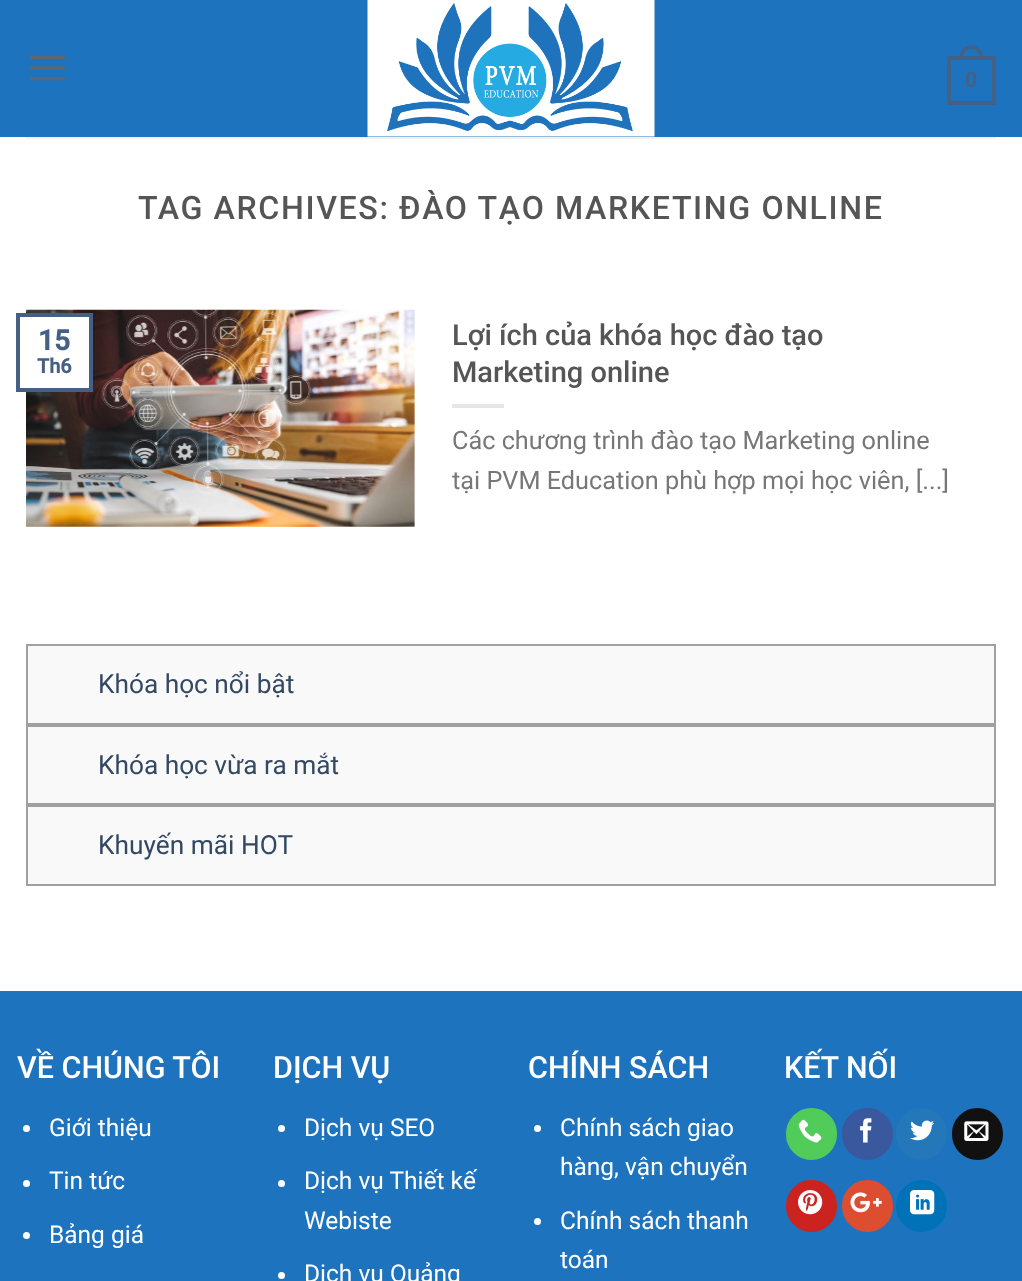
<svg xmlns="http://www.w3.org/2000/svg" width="1022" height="1281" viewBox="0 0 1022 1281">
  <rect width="100%" height="100%" fill="#ffffff"/>
  <rect x="0" y="0" width="1022" height="137" fill="#1e73be"/>
  <image x="29" y="55" width="37" height="26" href="img1.png"/>
  <image x="367" y="0" width="288" height="137" href="img2.png"/>
  <rect x="949" y="58" width="45" height="45" fill="none" stroke="#446084" stroke-width="4"/>
  <path d="M971 45.5C979.5 45.5 983.5 52 983.5 59.5H959C959 52 963 45.5 971 45.5ZM971 49C977.5 49 980 54 980 59.5H962.5C962.5 54 965 49 971 49Z" fill="#446084" fill-rule="evenodd"/>
  <text x="965" y="87" font-family="Liberation Sans" font-size="22" font-weight="bold" fill="#446084">0</text>
  <rect x="26" y="137" width="970" height="2" fill="#f1f1f1"/>
  <text x="138" y="219" font-family="Roboto" font-size="32.2" font-weight="500" letter-spacing="1.6" fill="#555555">TAG ARCHIVES: ĐÀO TẠO MARKETING ONLINE</text>
  <image x="26" y="309" width="389" height="218" href="img3.png"/>
  <text x="452" y="345" font-family="Roboto" font-size="29" font-weight="500" fill="#555555">Lợi ích của khóa học đào tạo</text>
  <text x="452" y="382" font-family="Roboto" font-size="29" font-weight="500" fill="#555555">Marketing online</text>
  <rect x="452" y="404" width="52" height="4" fill="#e6e6e6"/>
  <text x="452" y="449" font-family="Roboto" font-size="25.25" fill="#777777">Các chương trình đào tạo Marketing online</text>
  <text x="452" y="489" font-family="Roboto" font-size="25.25" fill="#777777">tại PVM Education phù hợp mọi học viên, [...]</text>
  <rect x="26" y="317" width="63" height="71" fill="#ffffff"/>
  <rect x="18" y="315" width="73" height="75" fill="none" stroke="#446084" stroke-width="4"/>
  <text x="38" y="350" font-family="Roboto" font-size="28" font-weight="bold" fill="#446084">15</text>
  <text x="37" y="373" font-family="Roboto" font-size="20" font-weight="bold" fill="#446084">Th6</text>
  <rect x="27" y="645" width="968" height="79" fill="#faf9f9" stroke="#a0a0a0" stroke-width="2"/>
  <text x="98" y="693" font-family="Roboto" font-size="26.25" fill="#334862">Khóa học nổi bật</text>
  <rect x="27" y="726" width="968" height="78" fill="#faf9f9" stroke="#a0a0a0" stroke-width="2"/>
  <text x="98" y="774" font-family="Roboto" font-size="26.25" fill="#334862">Khóa học vừa ra mắt</text>
  <rect x="27" y="806" width="968" height="79" fill="#faf9f9" stroke="#a0a0a0" stroke-width="2"/>
  <text x="98" y="854" font-family="Roboto" font-size="26.25" fill="#334862">Khuyến mãi HOT</text>
  <rect x="0" y="991" width="1022" height="290" fill="#1e73be"/>
  <text x="17" y="1078" font-family="Roboto" font-size="30.5" font-weight="500" fill="#ffffff">VỀ CHÚNG TÔI</text>
  <circle cx="26.5" cy="1128.5" r="3.5" fill="#ffffff"/>
  <text x="49" y="1136" font-family="Roboto" font-size="24.5" fill="#ffffff">Giới thiệu</text>
  <circle cx="26.5" cy="1183.5" r="3.5" fill="#ffffff"/>
  <text x="49" y="1189" font-family="Roboto" font-size="24.5" fill="#ffffff">Tin tức</text>
  <circle cx="26.5" cy="1235.5" r="3.5" fill="#ffffff"/>
  <text x="49" y="1243" font-family="Roboto" font-size="24.5" fill="#ffffff">Bảng giá</text>
  <text x="273" y="1078" font-family="Roboto" font-size="30.5" font-weight="500" fill="#ffffff">DỊCH VỤ</text>
  <circle cx="281.5" cy="1128.5" r="3.5" fill="#ffffff"/>
  <text x="304" y="1136" font-family="Roboto" font-size="24.5" fill="#ffffff">Dịch vụ SEO</text>
  <circle cx="281.5" cy="1183.5" r="3.5" fill="#ffffff"/>
  <text x="304" y="1189" font-family="Roboto" font-size="24.5" fill="#ffffff">Dịch vụ Thiết kế</text>
  <text x="304" y="1229" font-family="Roboto" font-size="24.5" fill="#ffffff">Webiste</text>
  <circle cx="281.5" cy="1275.5" r="3.5" fill="#ffffff"/>
  <text x="304" y="1282" font-family="Roboto" font-size="24.5" fill="#ffffff">Dịch vụ Quảng</text>
  <text x="528" y="1078" font-family="Roboto" font-size="30.5" font-weight="500" fill="#ffffff">CHÍNH SÁCH</text>
  <circle cx="537.5" cy="1128.5" r="3.5" fill="#ffffff"/>
  <text x="560" y="1136" font-family="Roboto" font-size="24.5" fill="#ffffff">Chính sách giao</text>
  <text x="560" y="1175" font-family="Roboto" font-size="24.5" fill="#ffffff">hàng, vận chuyển</text>
  <circle cx="537.5" cy="1221.5" r="3.5" fill="#ffffff"/>
  <text x="560" y="1229" font-family="Roboto" font-size="24.5" fill="#ffffff">Chính sách thanh</text>
  <text x="560" y="1268" font-family="Roboto" font-size="24.5" fill="#ffffff">toán</text>
  <text x="784" y="1078" font-family="Roboto" font-size="30.5" font-weight="500" fill="#ffffff">KẾT NỐI</text>
  <rect x="787" y="1109" width="49" height="50" rx="24.5" fill="#51cb5a" stroke="#51cb5a" stroke-width="2"/>
  <image x="798" y="1119" width="24" height="24" href="img4.png"/>
  <rect x="843" y="1109" width="49" height="50" rx="24.5" fill="#3a589d" stroke="#3a589d" stroke-width="2"/>
  <image x="860" y="1118" width="12" height="25" href="img5.png"/>
  <rect x="896" y="1108" width="51" height="52" rx="25.5" fill="#2478ba"/>
  <image x="910" y="1120" width="24" height="21" href="img6.png"/>
  <rect x="953" y="1109" width="49" height="50" rx="24.5" fill="#111111" stroke="#111111" stroke-width="2"/>
  <image x="964" y="1121" width="25" height="20" href="img7.png"/>
  <rect x="787" y="1181" width="49" height="50" rx="24.5" fill="#cb2320" stroke="#cb2320" stroke-width="2"/>
  <image x="798" y="1190" width="25" height="25" href="img8.png"/>
  <rect x="843" y="1181" width="49" height="50" rx="24.5" fill="#dd4e31" stroke="#dd4e31" stroke-width="2"/>
  <image x="850" y="1192" width="32" height="21" href="img9.png"/>
  <rect x="897" y="1181" width="49" height="50" rx="24.5" fill="#0072b7" stroke="#0072b7" stroke-width="2"/>
  <image x="910" y="1190" width="25" height="25" href="img10.png"/>
</svg>
